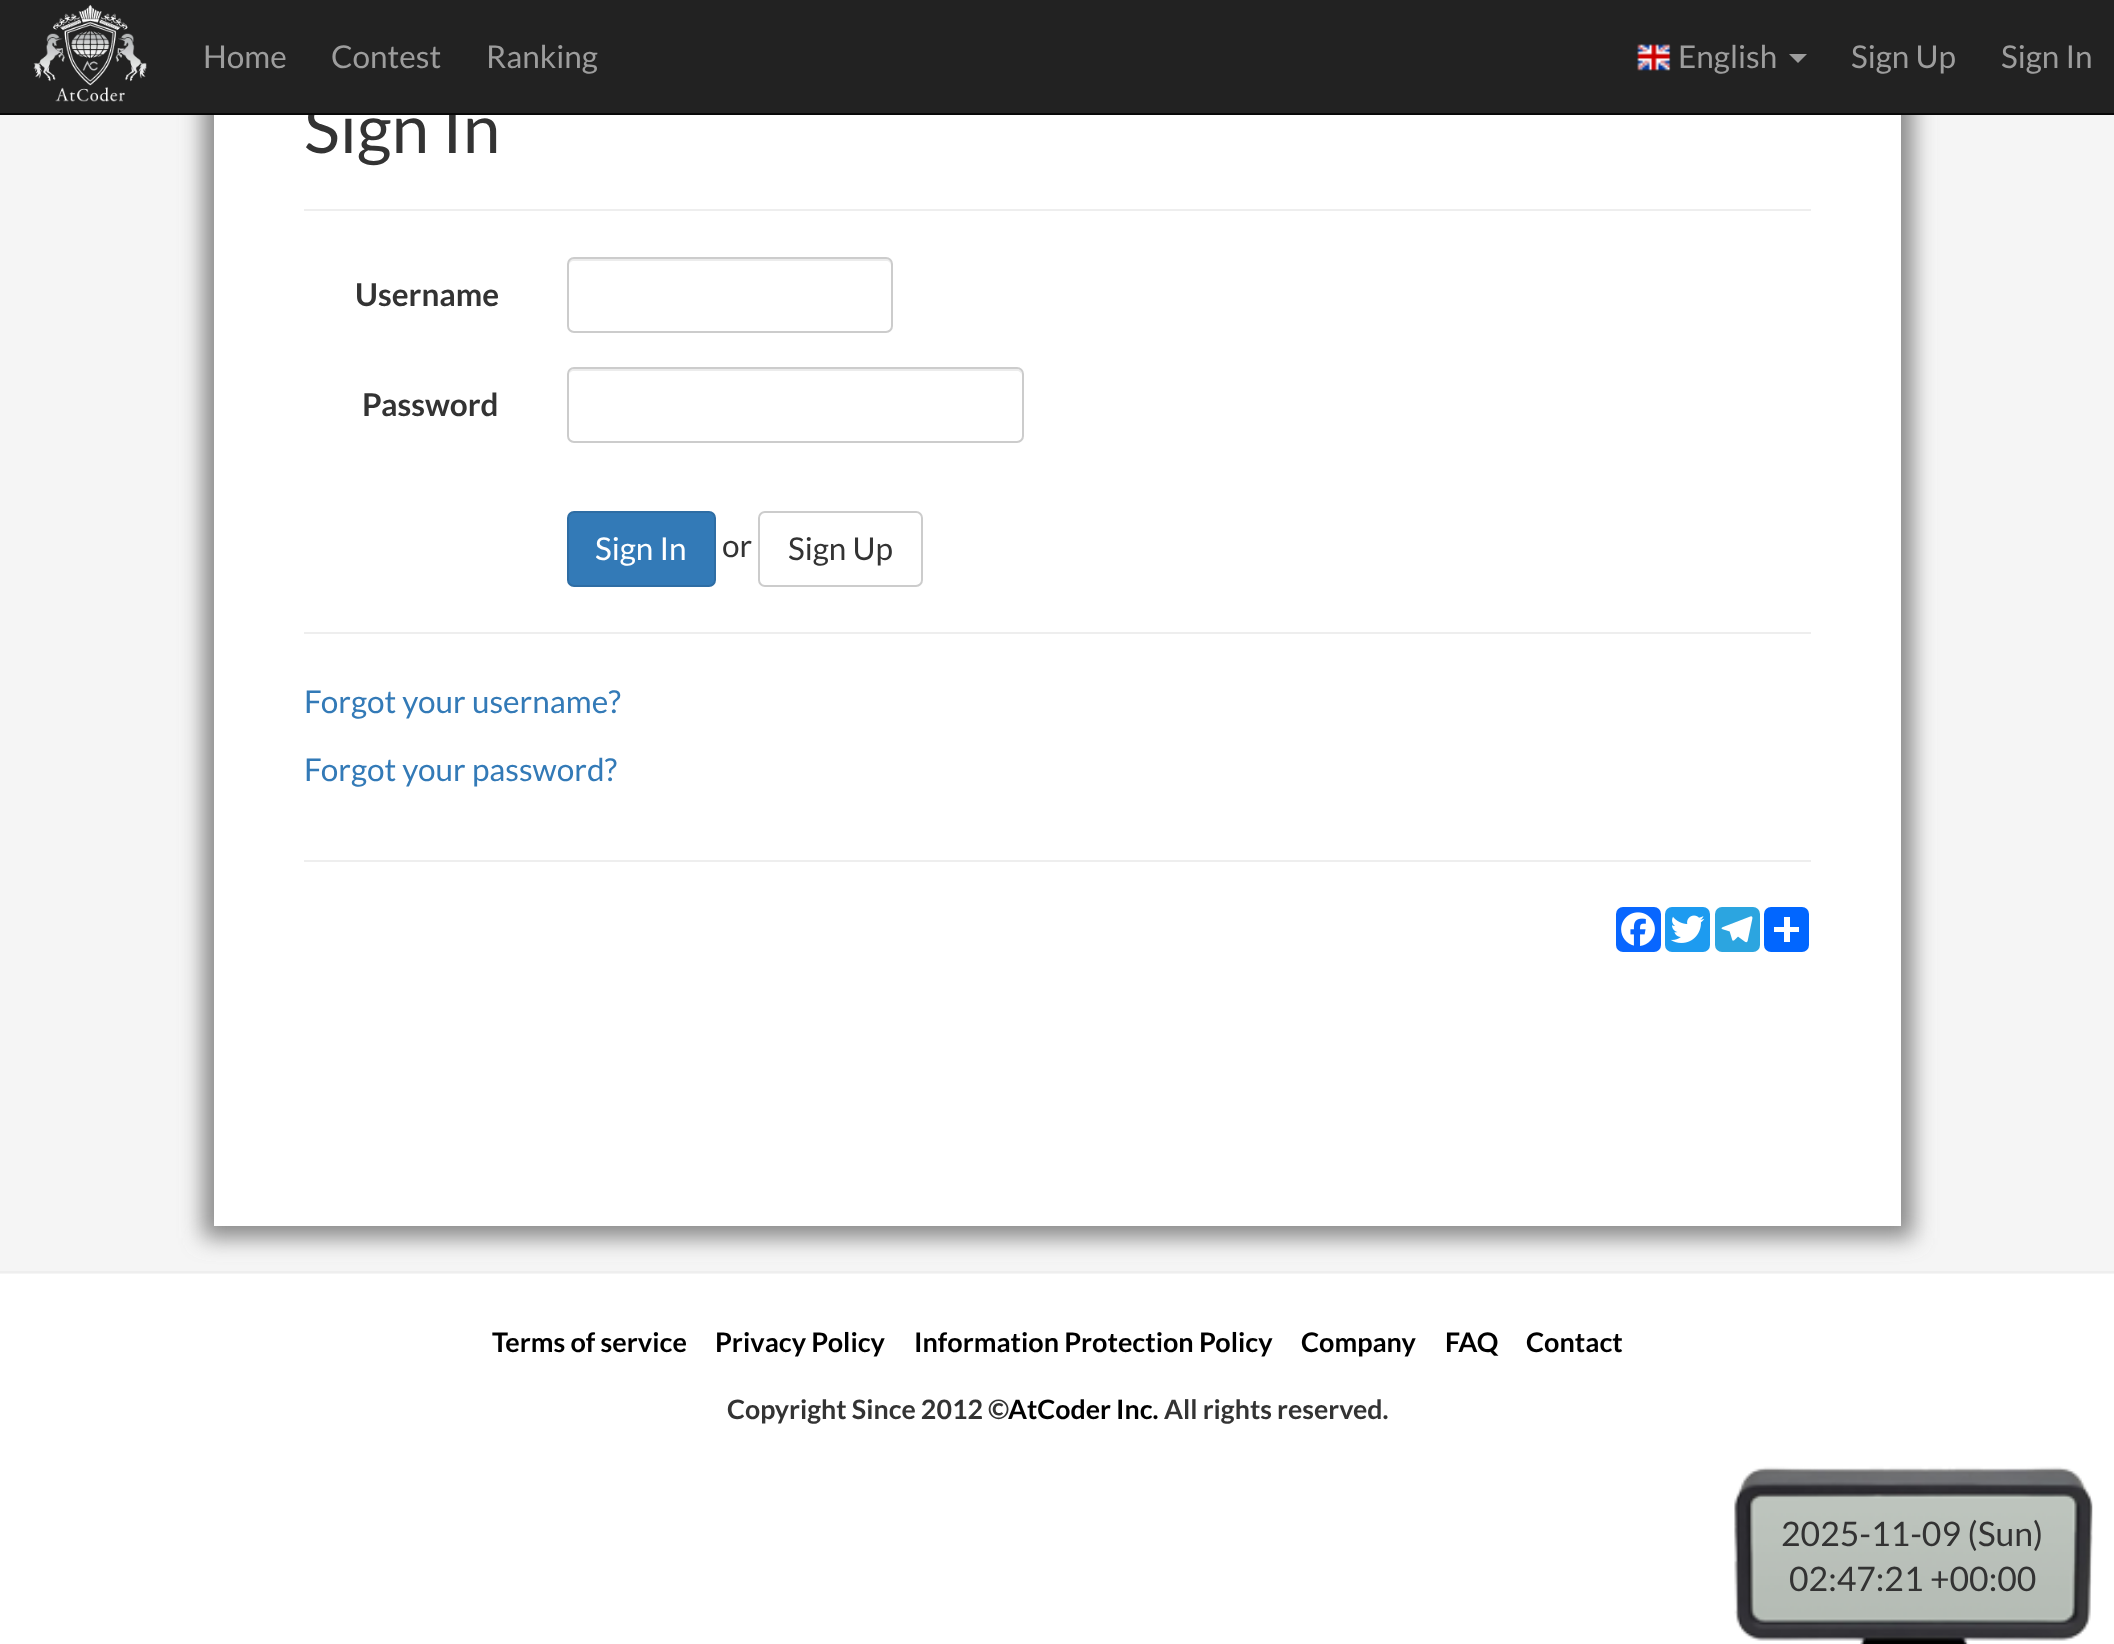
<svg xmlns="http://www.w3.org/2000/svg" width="2114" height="1644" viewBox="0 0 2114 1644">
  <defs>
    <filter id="blur1" x="-50%" y="-200%" width="200%" height="500%"><feGaussianBlur stdDeviation="11"/></filter>
  </defs>
  <rect width="100%" height="100%" fill="#ffffff"/>
  <rect x="0" y="115" width="2114" height="1159" fill="#f5f5f5"/>
  <rect x="203" y="-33" width="1710" height="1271" fill="#888888" filter="url(#blur1)"/>
  <rect x="214" y="115" width="1687" height="1111" fill="#ffffff"/>
  <text x="304" y="153" font-family="Lato" font-size="67.5" fill="#333333">Sign In</text>
  <rect x="0" y="0" width="2114" height="113" fill="#222222"/>
  <rect x="0" y="113" width="2114" height="2" fill="#080808"/>
  <image x="33" y="4" width="114" height="98" href="img1.png"/>
  <text x="203" y="68" font-family="Lato" font-size="31.5" fill="#9d9d9d">Home</text>
  <text x="331" y="68" font-family="Lato" font-size="31.5" fill="#9d9d9d">Contest</text>
  <text x="486" y="68" font-family="Lato" font-size="31.5" fill="#9d9d9d">Ranking</text>
  <image x="1637" y="44" width="34" height="27" href="img2.png"/>
  <text x="1678" y="68" font-family="Lato" font-size="31.5" fill="#9d9d9d">English</text>
  <path d="M1789 54H1807L1798 63Z" fill="#9d9d9d"/>
  <text x="1851" y="68" font-family="Lato" font-size="31.5" fill="#9d9d9d">Sign Up</text>
  <text x="2001" y="68" font-family="Lato" font-size="31.5" fill="#9d9d9d">Sign In</text>
  <rect x="304" y="209" width="1507" height="2" fill="#eeeeee"/>
  <text x="355" y="306" font-family="Lato" font-size="31.5" font-weight="bold" fill="#333333">Username</text>
  <path d="M574 261H886C889 261 891 263 891 266V264C891 261 889 259 886 259H574C571 259 569 261 569 264V266C569 263 571 261 574 261Z" fill="#ececec"/>
  <rect x="568" y="258" width="324" height="74" rx="6" fill="none" stroke="#cccccc" stroke-width="2"/>
  <text x="362" y="416" font-family="Lato" font-size="31.5" font-weight="bold" fill="#333333">Password</text>
  <path d="M574 371H1017C1019 371 1022 373 1022 376C1022 373 1021 369 1017 369H574C570 369 569 373 569 376C569 373 571 371 574 371Z" fill="#ececec"/>
  <rect x="568" y="368" width="455" height="74" rx="6" fill="none" stroke="#cccccc" stroke-width="2"/>
  <rect x="568" y="512" width="147" height="74" rx="6" fill="#337ab7" stroke="#2e6da4" stroke-width="2"/>
  <text x="595" y="560" font-family="Lato" font-size="31.5" fill="#ffffff">Sign In</text>
  <text x="722" y="557" font-family="Lato" font-size="31.5" fill="#333333">or</text>
  <rect x="759" y="512" width="163" height="74" rx="6" fill="none" stroke="#cccccc" stroke-width="2"/>
  <text x="788" y="560" font-family="Lato" font-size="31.5" fill="#333333">Sign Up</text>
  <rect x="304" y="632" width="1507" height="2" fill="#eeeeee"/>
  <text x="304" y="713" font-family="Lato" font-size="31.5" fill="#337ab7">Forgot your username?</text>
  <text x="304" y="781" font-family="Lato" font-size="31.5" fill="#337ab7">Forgot your password?</text>
  <rect x="304" y="860" width="1507" height="2" fill="#eeeeee"/>
  <rect x="1616" y="907" width="45" height="45" rx="7" fill="#0866ff"/>
  <image x="1621" y="912" width="34" height="34" href="img3.png"/>
  <rect x="1665" y="907" width="45" height="45" rx="7" fill="#1d9bf0"/>
  <image x="1670" y="915" width="35" height="28" href="img4.png"/>
  <rect x="1715" y="907" width="45" height="45" rx="7" fill="#2ca5e0"/>
  <image x="1721" y="916" width="32" height="27" href="img5.png"/>
  <rect x="1764" y="907" width="45" height="45" rx="7" fill="#0166ff"/>
  <rect x="1784" y="917" width="6" height="25" fill="#ffffff"/>
  <rect x="1774" y="927" width="25" height="5" fill="#ffffff"/>
  <rect x="0" y="1271" width="2114" height="2" fill="#eeeeee"/>
  <text x="492" y="1352" font-family="Lato" font-size="27" font-weight="bold" fill="#000000">Terms of service</text>
  <text x="715" y="1352" font-family="Lato" font-size="27" font-weight="bold" fill="#000000">Privacy Policy</text>
  <text x="914" y="1352" font-family="Lato" font-size="27" font-weight="bold" fill="#000000">Information Protection Policy</text>
  <text x="1301" y="1352" font-family="Lato" font-size="27" font-weight="bold" fill="#000000">Company</text>
  <text x="1445" y="1352" font-family="Lato" font-size="27" font-weight="bold" fill="#000000">FAQ</text>
  <text x="1526" y="1352" font-family="Lato" font-size="27" font-weight="bold" fill="#000000">Contact</text>
  <text x="727" y="1419" font-family="Lato" font-size="26.75" font-weight="bold" fill="#333333">Copyright Since 2012 ©</text>
  <text x="1008" y="1419" font-family="Lato" font-size="26.75" font-weight="bold" fill="#000000">AtCoder Inc.</text>
  <text x="1164" y="1419" font-family="Lato" font-size="26.75" font-weight="bold" fill="#333333">All rights reserved.</text>
  <image x="1734" y="1466" width="359" height="178" href="img6.png"/>
  <text x="1781" y="1546" font-family="Lato" font-size="33.75" fill="#333333">2025-11-09 (Sun)</text>
  <text x="1789" y="1591" font-family="Lato" font-size="33.75" fill="#333333">02:47:21 +00:00</text>
</svg>
